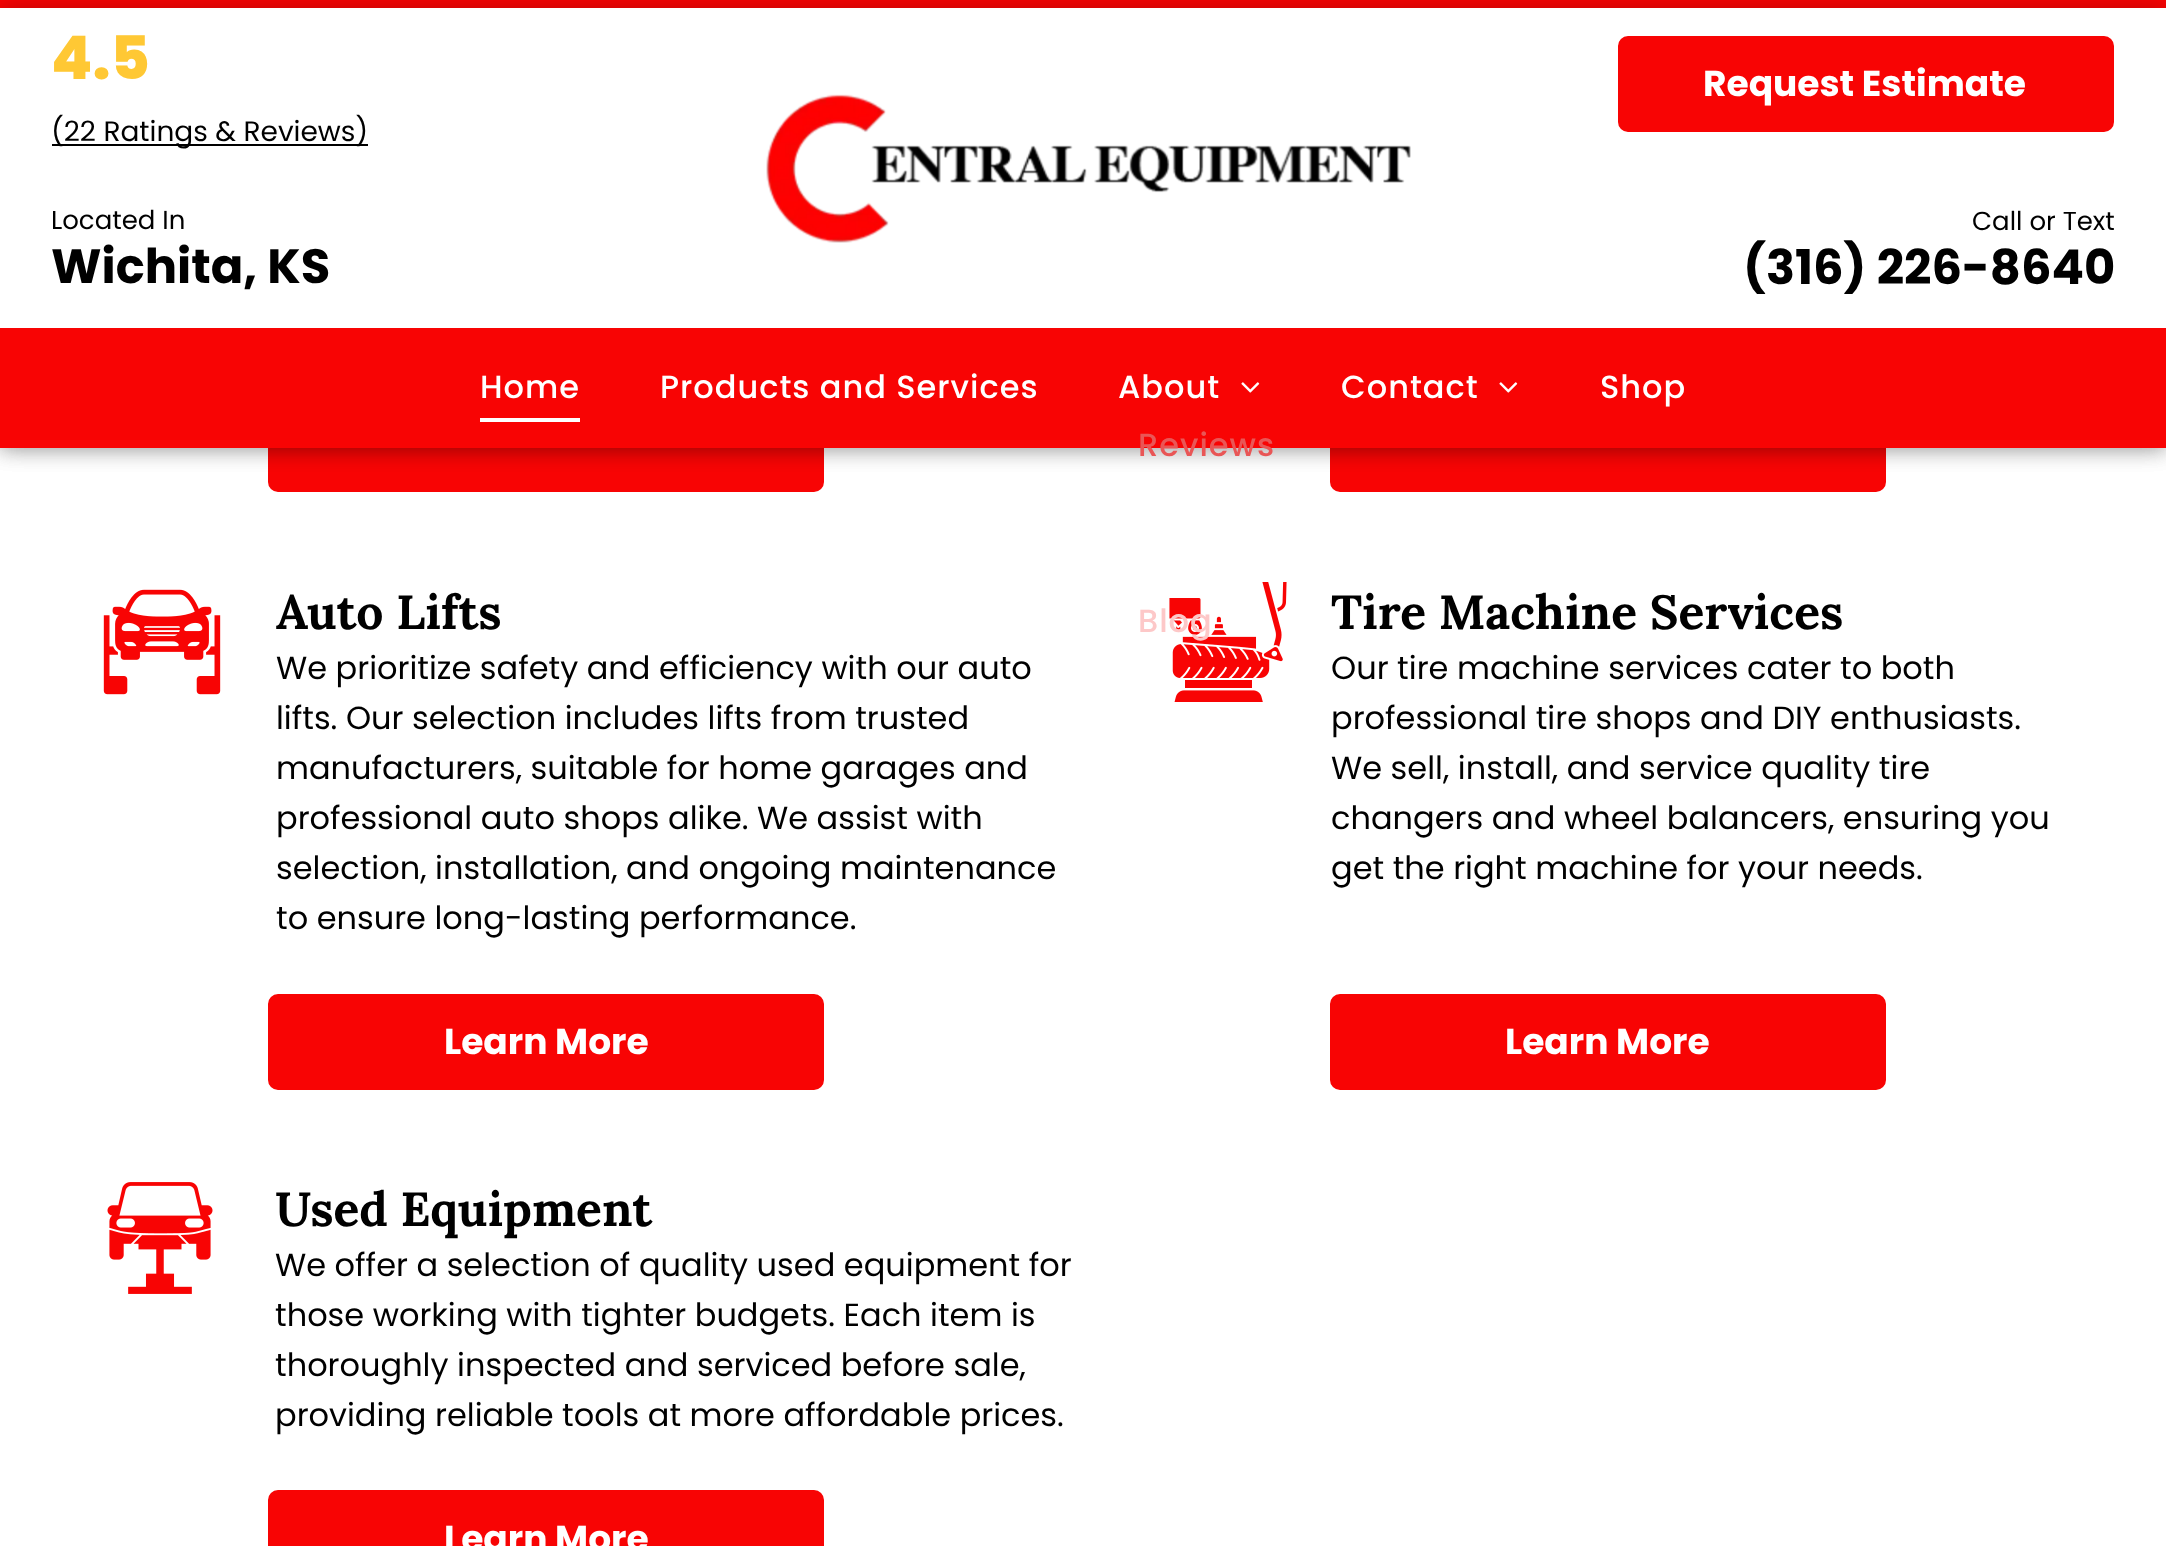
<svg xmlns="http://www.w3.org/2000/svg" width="2166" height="1546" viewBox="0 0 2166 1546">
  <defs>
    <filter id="blur1" x="-50%" y="-200%" width="200%" height="500%"><feGaussianBlur stdDeviation="11"/></filter>
    <clipPath id="clip1"><path d="M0 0H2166V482H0ZM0 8H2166V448H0Z" clip-rule="evenodd"/></clipPath>
  </defs>
  <rect width="100%" height="100%" fill="#ffffff"/>
  <rect x="267" y="395" width="558" height="98" rx="11" fill="#f80404" stroke="#ffffff" stroke-width="2"/>
  <rect x="1329" y="395" width="558" height="98" rx="11" fill="#f80404" stroke="#ffffff" stroke-width="2"/>
  <rect x="0" y="0" width="2166" height="448" fill="#000000" fill-opacity="0.25" filter="url(#blur1)"/>
  <rect x="0" y="8" width="2166" height="320" fill="#ffffff"/>
  <rect x="0" y="0" width="2166" height="8" fill="#f80404"/>
  <g clip-path="url(#clip1)">
    <rect x="0" y="8" width="2166" height="440" fill="#000000" fill-opacity="0.25" filter="url(#blur1)"/>
  </g>
  <text x="51" y="79" font-family="Poppins" font-size="60" font-weight="800" fill="#ffc834">4.5</text>
  <rect x="52" y="144" width="316" height="2" fill="#000000"/>
  <text x="51" y="141" font-family="Poppins" font-size="28" fill="#000000">(22 Ratings &amp; Reviews)</text>
  <text x="51" y="229" font-family="Poppins" font-size="26" fill="#000000">Located In</text>
  <text x="51" y="283" font-family="Poppins" font-size="48" font-weight="bold" fill="#000000">Wichita, KS</text>
  <image x="766" y="94" width="645" height="149" href="img1.png"/>
  <rect x="1617" y="35" width="498" height="98" rx="11" fill="#f80404" stroke="#ffffff" stroke-width="2"/>
  <text x="1703" y="96" font-family="Poppins" font-size="36" font-weight="bold" fill="#ffffff">Request Estimate</text>
  <text x="1972" y="230" font-family="Poppins" font-size="26" fill="#000000">Call or Text</text>
  <text x="1743" y="284" font-family="Poppins" font-size="48" font-weight="bold" fill="#000000">(316) 226-8640</text>
  <rect x="0" y="328" width="2166" height="120" fill="#f80404"/>
  <text x="480" y="398" font-family="Poppins" font-size="32" font-weight="500" letter-spacing="1" fill="#ffffff">Home</text>
  <rect x="480" y="418" width="100" height="4" fill="#ffffff"/>
  <text x="660" y="398" font-family="Poppins" font-size="32" font-weight="500" letter-spacing="1" fill="#ffffff">Products and Services</text>
  <text x="1118" y="398" font-family="Poppins" font-size="32" font-weight="500" letter-spacing="1" fill="#ffffff">About</text>
  <image x="1241" y="382" width="19" height="11" href="img2.png"/>
  <text x="1138" y="456" font-family="Poppins" font-size="32" font-weight="500" letter-spacing="1" fill="#e95656">Reviews</text>
  <image x="1169" y="582" width="118" height="120" href="img4.png"/>
  <text x="1138" y="632" font-family="Poppins" font-size="32" font-weight="500" letter-spacing="1" fill="#fdc8c8">Blog</text>
  <text x="1341" y="398" font-family="Poppins" font-size="32" font-weight="500" letter-spacing="1" fill="#ffffff">Contact</text>
  <image x="1499" y="382" width="19" height="11" href="img2.png"/>
  <text x="1600" y="398" font-family="Poppins" font-size="32" font-weight="500" letter-spacing="1" fill="#ffffff">Shop</text>
  <image x="103" y="589" width="118" height="106" href="img3.png"/>
  <text x="276" y="629" font-family="Lora" font-size="48" font-weight="bold" fill="#000000">Auto Lifts</text>
  <text x="276" y="679" font-family="Poppins" font-size="32" fill="#000000">We prioritize safety and efficiency with our auto</text>
  <text x="276" y="729" font-family="Poppins" font-size="32" fill="#000000">lifts. Our selection includes lifts from trusted</text>
  <text x="276" y="779" font-family="Poppins" font-size="32" fill="#000000">manufacturers, suitable for home garages and</text>
  <text x="276" y="829" font-family="Poppins" font-size="32" fill="#000000">professional auto shops alike. We assist with</text>
  <text x="276" y="879" font-family="Poppins" font-size="32" fill="#000000">selection, installation, and ongoing maintenance</text>
  <text x="276" y="929" font-family="Poppins" font-size="32" fill="#000000">to ensure long-lasting performance.</text>
  <rect x="267" y="993" width="558" height="98" rx="11" fill="#f80404" stroke="#ffffff" stroke-width="2"/>
  <text x="444" y="1054" font-family="Poppins" font-size="36" font-weight="bold" fill="#ffffff">Learn More</text>
  <text x="1331" y="629" font-family="Lora" font-size="48" font-weight="bold" fill="#000000">Tire Machine Services</text>
  <text x="1331" y="679" font-family="Poppins" font-size="32" fill="#000000">Our tire machine services cater to both</text>
  <text x="1331" y="729" font-family="Poppins" font-size="32" fill="#000000">professional tire shops and DIY enthusiasts.</text>
  <text x="1331" y="779" font-family="Poppins" font-size="32" fill="#000000">We sell, install, and service quality tire</text>
  <text x="1331" y="829" font-family="Poppins" font-size="32" fill="#000000">changers and wheel balancers, ensuring you</text>
  <text x="1331" y="879" font-family="Poppins" font-size="32" fill="#000000">get the right machine for your needs.</text>
  <rect x="1329" y="993" width="558" height="98" rx="11" fill="#f80404" stroke="#ffffff" stroke-width="2"/>
  <text x="1505" y="1054" font-family="Poppins" font-size="36" font-weight="bold" fill="#ffffff">Learn More</text>
  <image x="107" y="1182" width="106" height="112" href="img5.png"/>
  <text x="275" y="1226" font-family="Lora" font-size="48" font-weight="bold" fill="#000000">Used Equipment</text>
  <text x="275" y="1276" font-family="Poppins" font-size="32" fill="#000000">We offer a selection of quality used equipment for</text>
  <text x="275" y="1326" font-family="Poppins" font-size="32" fill="#000000">those working with tighter budgets. Each item is</text>
  <text x="275" y="1376" font-family="Poppins" font-size="32" fill="#000000">thoroughly inspected and serviced before sale,</text>
  <text x="275" y="1426" font-family="Poppins" font-size="32" fill="#000000">providing reliable tools at more affordable prices.</text>
  <rect x="267" y="1489" width="558" height="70" rx="11" fill="#f80404" stroke="#ffffff" stroke-width="2"/>
  <text x="444" y="1551" font-family="Poppins" font-size="36" font-weight="bold" fill="#ffffff">Learn More</text>
</svg>
